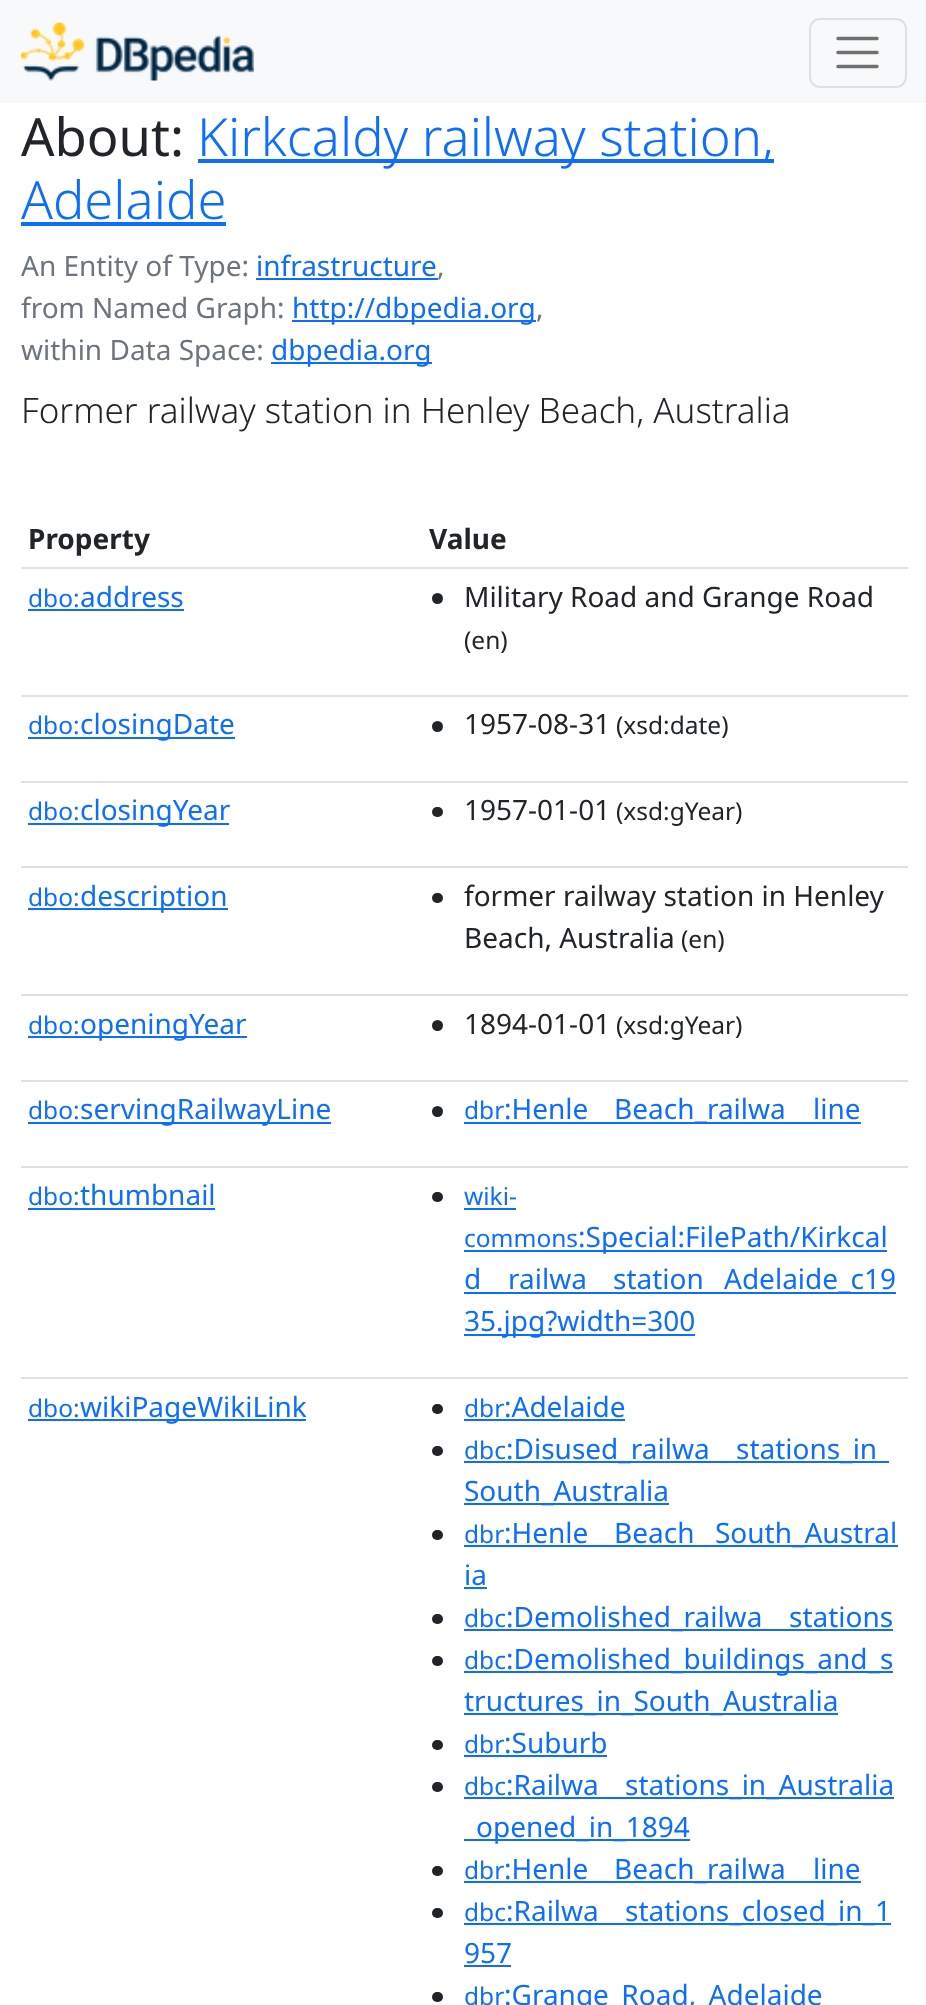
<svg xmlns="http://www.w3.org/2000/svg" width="926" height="2005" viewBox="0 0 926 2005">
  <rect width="100%" height="100%" fill="#ffffff"/>
  <rect x="0" y="0" width="926" height="103" fill="#f8f9fa"/>
  <image x="21" y="22" width="233" height="59" href="img1.png"/>
  <rect x="810" y="19" width="96" height="68" rx="10" fill="none" stroke="#dfe0e1" stroke-width="2"/>
  <path d="M838 38.5H877M838 52.5H877M838 66.5H877" fill="none" stroke="#707071" stroke-width="3.5" stroke-linecap="round"/>
  <text x="21" y="156" font-family="Noto Sans" font-size="52.5" fill="#212529">About:</text>
  <rect x="198" y="159" width="576" height="4" fill="#0d6efd"/>
  <text x="197" y="156" font-family="Noto Sans" font-size="52.5" font-weight="300" fill="#0d6efd">Kirkcaldy railway station,</text>
  <text x="21" y="219" font-family="Noto Sans" font-size="52.5" font-weight="300" fill="#0d6efd">Adelaide</text>
  <rect x="21" y="222" width="205" height="4" fill="#0d6efd"/>
  <text x="21" y="276" font-family="Noto Sans" font-size="28" fill="#6c757d">An Entity of Type:</text>
  <text x="256" y="276" font-family="Noto Sans" font-size="28" fill="#0d6efd">infrastructure</text>
  <text x="437" y="276" font-family="Noto Sans" font-size="28" fill="#6c757d">,</text>
  <rect x="256" y="278" width="182" height="2" fill="#0d6efd"/>
  <text x="21" y="318" font-family="Noto Sans" font-size="28" fill="#6c757d">from Named Graph:</text>
  <rect x="292" y="320" width="244" height="2" fill="#0d6efd"/>
  <text x="292" y="318" font-family="Noto Sans" font-size="28" fill="#0d6efd">http://dbpedia.org</text>
  <text x="536" y="318" font-family="Noto Sans" font-size="28" fill="#6c757d">,</text>
  <text x="21" y="360" font-family="Noto Sans" font-size="28" fill="#6c757d">within Data Space:</text>
  <rect x="271" y="362" width="161" height="2" fill="#0d6efd"/>
  <text x="271" y="360" font-family="Noto Sans" font-size="28" fill="#0d6efd">dbpedia.org</text>
  <text x="21" y="423" font-family="Noto Sans" font-size="35" font-weight="300" fill="#212529">Former railway station in Henley Beach, Australia</text>
  <text x="28" y="549" font-family="Noto Sans" font-size="28" font-weight="bold" fill="#212529">Property</text>
  <rect x="21" y="567" width="887" height="2" fill="#dee2e6"/>
  <text x="429" y="549" font-family="Noto Sans" font-size="28" font-weight="bold" fill="#212529">Value</text>
  <text x="28" y="607" font-family="Noto Sans" font-size="24.5" fill="#0d6efd">dbo:</text>
  <rect x="28" y="609" width="156" height="2" fill="#0d6efd"/>
  <text x="80" y="607" font-family="Noto Sans" font-size="28" fill="#0d6efd">address</text>
  <rect x="21" y="695" width="887" height="2" fill="#dee2e6"/>
  <circle cx="437.5" cy="598.5" r="5.5" fill="#212529"/>
  <text x="464" y="607" font-family="Noto Sans" font-size="28" fill="#212529">Military Road and Grange Road</text>
  <text x="464" y="649" font-family="Noto Sans" font-size="24.5" fill="#212529">(en)</text>
  <text x="28" y="734" font-family="Noto Sans" font-size="24.5" fill="#0d6efd">dbo:</text>
  <rect x="28" y="737" width="207" height="2" fill="#0d6efd"/>
  <text x="80" y="734" font-family="Noto Sans" font-size="28" fill="#0d6efd">closingDate</text>
  <rect x="21" y="781" width="887" height="2" fill="#dee2e6"/>
  <circle cx="437.5" cy="726.5" r="5.5" fill="#212529"/>
  <text x="464" y="734" font-family="Noto Sans" font-size="28" fill="#212529">1957-08-31</text>
  <text x="616" y="734" font-family="Noto Sans" font-size="24.5" fill="#212529">(xsd:date)</text>
  <text x="28" y="820" font-family="Noto Sans" font-size="24.5" fill="#0d6efd">dbo:</text>
  <rect x="28" y="823" width="201" height="2" fill="#0d6efd"/>
  <text x="80" y="820" font-family="Noto Sans" font-size="28" fill="#0d6efd">closingYear</text>
  <rect x="21" y="866" width="887" height="2" fill="#dee2e6"/>
  <rect x="432" y="807" width="11" height="10" rx="5" fill="#212529"/>
  <text x="464" y="820" font-family="Noto Sans" font-size="28" fill="#212529">1957-01-01</text>
  <text x="616" y="820" font-family="Noto Sans" font-size="24.5" fill="#212529">(xsd:gYear)</text>
  <text x="28" y="906" font-family="Noto Sans" font-size="24.5" fill="#0d6efd">dbo:</text>
  <rect x="28" y="908" width="200" height="2" fill="#0d6efd"/>
  <text x="80" y="906" font-family="Noto Sans" font-size="28" fill="#0d6efd">description</text>
  <rect x="21" y="994" width="887" height="2" fill="#dee2e6"/>
  <rect x="432" y="893" width="11" height="10" rx="5" fill="#212529"/>
  <text x="464" y="906" font-family="Noto Sans" font-size="28" fill="#212529">former railway station in Henley</text>
  <text x="464" y="948" font-family="Noto Sans" font-size="28" fill="#212529">Beach, Australia</text>
  <text x="681" y="948" font-family="Noto Sans" font-size="24.5" fill="#212529">(en)</text>
  <text x="28" y="1034" font-family="Noto Sans" font-size="24.5" fill="#0d6efd">dbo:</text>
  <rect x="28" y="1036" width="219" height="2" fill="#0d6efd"/>
  <text x="80" y="1034" font-family="Noto Sans" font-size="28" fill="#0d6efd">openingYear</text>
  <rect x="21" y="1080" width="887" height="2" fill="#dee2e6"/>
  <circle cx="437.5" cy="1025.5" r="5.5" fill="#212529"/>
  <text x="464" y="1034" font-family="Noto Sans" font-size="28" fill="#212529">1894-01-01</text>
  <text x="616" y="1034" font-family="Noto Sans" font-size="24.5" fill="#212529">(xsd:gYear)</text>
  <text x="28" y="1119" font-family="Noto Sans" font-size="24.5" fill="#0d6efd">dbo:</text>
  <rect x="28" y="1122" width="303" height="2" fill="#0d6efd"/>
  <text x="80" y="1119" font-family="Noto Sans" font-size="28" fill="#0d6efd">servingRailwayLine</text>
  <rect x="21" y="1166" width="887" height="2" fill="#dee2e6"/>
  <circle cx="437.5" cy="1111.5" r="5.5" fill="#212529"/>
  <text x="464" y="1119" font-family="Noto Sans" font-size="24.5" fill="#0d6efd">dbr</text>
  <text x="504" y="1119" font-family="Noto Sans" font-size="28" fill="#0d6efd">:Henle</text>
  <rect x="464" y="1122" width="397" height="2" fill="#0d6efd"/>
  <text x="614" y="1119" font-family="Noto Sans" font-size="28" fill="#0d6efd">Beach_railwa</text>
  <text x="813" y="1119" font-family="Noto Sans" font-size="28" fill="#0d6efd">line</text>
  <text x="28" y="1205" font-family="Noto Sans" font-size="24.5" fill="#0d6efd">dbo:</text>
  <rect x="28" y="1208" width="187" height="2" fill="#0d6efd"/>
  <text x="80" y="1205" font-family="Noto Sans" font-size="28" fill="#0d6efd">thumbnail</text>
  <rect x="21" y="1377" width="887" height="2" fill="#dee2e6"/>
  <rect x="432" y="1192" width="11" height="10" rx="5" fill="#212529"/>
  <text x="464" y="1205" font-family="Noto Sans" font-size="24.5" fill="#0d6efd">wiki-</text>
  <rect x="464" y="1208" width="52" height="2" fill="#0d6efd"/>
  <text x="464" y="1247" font-family="Noto Sans" font-size="24.5" fill="#0d6efd">commons</text>
  <rect x="464" y="1250" width="423" height="2" fill="#0d6efd"/>
  <text x="578" y="1247" font-family="Noto Sans" font-size="28" fill="#0d6efd">:Special:FilePath/Kirkcal</text>
  <text x="464" y="1289" font-family="Noto Sans" font-size="28" fill="#0d6efd">d</text>
  <text x="508" y="1289" font-family="Noto Sans" font-size="28" fill="#0d6efd">railwa</text>
  <text x="613" y="1289" font-family="Noto Sans" font-size="28" fill="#0d6efd">station</text>
  <rect x="464" y="1292" width="432" height="2" fill="#0d6efd"/>
  <text x="724" y="1289" font-family="Noto Sans" font-size="28" fill="#0d6efd">Adelaide_c19</text>
  <rect x="464" y="1334" width="231" height="2" fill="#0d6efd"/>
  <text x="464" y="1331" font-family="Noto Sans" font-size="28" fill="#0d6efd">35.jpg?width=300</text>
  <text x="28" y="1417" font-family="Noto Sans" font-size="24.5" fill="#0d6efd">dbo:</text>
  <rect x="28" y="1419" width="278" height="2" fill="#0d6efd"/>
  <text x="80" y="1417" font-family="Noto Sans" font-size="28" fill="#0d6efd">wikiPageWikiLink</text>
  <rect x="432" y="1404" width="11" height="10" rx="5" fill="#212529"/>
  <text x="464" y="1417" font-family="Noto Sans" font-size="24.5" fill="#0d6efd">dbr</text>
  <rect x="464" y="1419" width="161" height="2" fill="#0d6efd"/>
  <text x="504" y="1417" font-family="Noto Sans" font-size="28" fill="#0d6efd">:Adelaide</text>
  <rect x="432" y="1446" width="11" height="10" rx="5" fill="#212529"/>
  <text x="464" y="1459" font-family="Noto Sans" font-size="24.5" fill="#0d6efd">dbc</text>
  <rect x="464" y="1461" width="425" height="2" fill="#0d6efd"/>
  <text x="506" y="1459" font-family="Noto Sans" font-size="28" fill="#0d6efd">:Disused_railwa</text>
  <text x="736" y="1459" font-family="Noto Sans" font-size="28" fill="#0d6efd">stations_in</text>
  <rect x="464" y="1503" width="205" height="2" fill="#0d6efd"/>
  <text x="464" y="1501" font-family="Noto Sans" font-size="28" fill="#0d6efd">South_Australia</text>
  <rect x="432" y="1530" width="11" height="10" rx="5" fill="#212529"/>
  <text x="464" y="1543" font-family="Noto Sans" font-size="24.5" fill="#0d6efd">dbr</text>
  <text x="504" y="1543" font-family="Noto Sans" font-size="28" fill="#0d6efd">:Henle</text>
  <text x="614" y="1543" font-family="Noto Sans" font-size="28" fill="#0d6efd">Beach</text>
  <rect x="464" y="1545" width="434" height="2" fill="#0d6efd"/>
  <text x="715" y="1543" font-family="Noto Sans" font-size="28" fill="#0d6efd">South_Austral</text>
  <text x="464" y="1585" font-family="Noto Sans" font-size="28" fill="#0d6efd">ia</text>
  <rect x="464" y="1587" width="23" height="2" fill="#0d6efd"/>
  <rect x="432" y="1614" width="11" height="10" rx="5" fill="#212529"/>
  <text x="464" y="1627" font-family="Noto Sans" font-size="24.5" fill="#0d6efd">dbc</text>
  <rect x="464" y="1629" width="429" height="2" fill="#0d6efd"/>
  <text x="506" y="1627" font-family="Noto Sans" font-size="28" fill="#0d6efd">:Demolished_railwa</text>
  <text x="789" y="1627" font-family="Noto Sans" font-size="28" fill="#0d6efd">stations</text>
  <rect x="432" y="1656" width="11" height="10" rx="5" fill="#212529"/>
  <text x="464" y="1669" font-family="Noto Sans" font-size="24.5" fill="#0d6efd">dbc</text>
  <rect x="464" y="1671" width="429" height="2" fill="#0d6efd"/>
  <text x="506" y="1669" font-family="Noto Sans" font-size="28" fill="#0d6efd">:Demolished_buildings_and_s</text>
  <rect x="464" y="1713" width="374" height="2" fill="#0d6efd"/>
  <text x="464" y="1711" font-family="Noto Sans" font-size="28" fill="#0d6efd">tructures_in_South_Australia</text>
  <rect x="432" y="1740" width="11" height="10" rx="5" fill="#212529"/>
  <text x="464" y="1753" font-family="Noto Sans" font-size="24.5" fill="#0d6efd">dbr</text>
  <rect x="464" y="1755" width="143" height="2" fill="#0d6efd"/>
  <text x="504" y="1753" font-family="Noto Sans" font-size="28" fill="#0d6efd">:Suburb</text>
  <rect x="432" y="1782" width="11" height="10" rx="5" fill="#212529"/>
  <text x="464" y="1795" font-family="Noto Sans" font-size="24.5" fill="#0d6efd">dbc</text>
  <text x="506" y="1795" font-family="Noto Sans" font-size="28" fill="#0d6efd">:Railwa</text>
  <rect x="464" y="1797" width="430" height="2" fill="#0d6efd"/>
  <text x="625" y="1795" font-family="Noto Sans" font-size="28" fill="#0d6efd">stations_in_Australia</text>
  <rect x="464" y="1839" width="226" height="2" fill="#0d6efd"/>
  <text x="476" y="1837" font-family="Noto Sans" font-size="28" fill="#0d6efd">opened_in_1894</text>
  <rect x="432" y="1866" width="11" height="10" rx="5" fill="#212529"/>
  <text x="464" y="1879" font-family="Noto Sans" font-size="24.5" fill="#0d6efd">dbr</text>
  <text x="504" y="1879" font-family="Noto Sans" font-size="28" fill="#0d6efd">:Henle</text>
  <rect x="464" y="1881" width="397" height="2" fill="#0d6efd"/>
  <text x="614" y="1879" font-family="Noto Sans" font-size="28" fill="#0d6efd">Beach_railwa</text>
  <text x="813" y="1879" font-family="Noto Sans" font-size="28" fill="#0d6efd">line</text>
  <rect x="432" y="1908" width="11" height="10" rx="5" fill="#212529"/>
  <text x="464" y="1921" font-family="Noto Sans" font-size="24.5" fill="#0d6efd">dbc</text>
  <text x="506" y="1921" font-family="Noto Sans" font-size="28" fill="#0d6efd">:Railwa</text>
  <rect x="464" y="1923" width="427" height="2" fill="#0d6efd"/>
  <text x="625" y="1921" font-family="Noto Sans" font-size="28" fill="#0d6efd">stations_closed_in_1</text>
  <text x="464" y="1963" font-family="Noto Sans" font-size="28" fill="#0d6efd">957</text>
  <rect x="464" y="1965" width="47" height="2" fill="#0d6efd"/>
  <rect x="432" y="1992" width="11" height="10" rx="5" fill="#212529"/>
  <text x="464" y="2005" font-family="Noto Sans" font-size="24.5" fill="#0d6efd">dbr</text>
  <text x="504" y="2005" font-family="Noto Sans" font-size="28" fill="#0d6efd">:Grange_Road,_Adelaide</text>
</svg>
